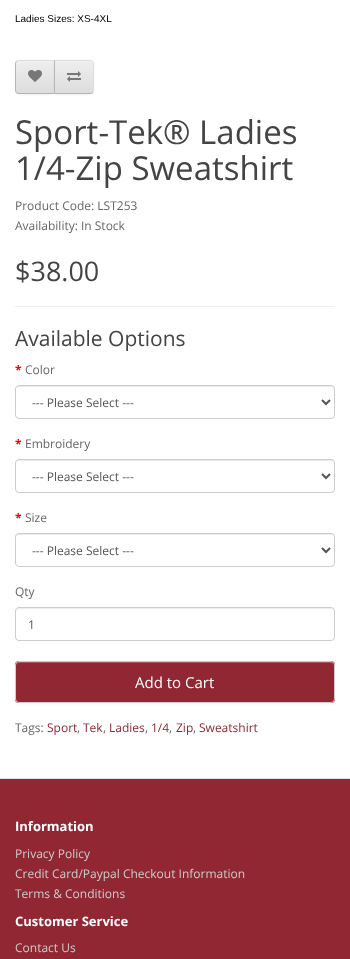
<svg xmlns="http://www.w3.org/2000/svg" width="350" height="959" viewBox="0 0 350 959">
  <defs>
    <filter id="blur1" x="-50%" y="-200%" width="200%" height="500%"><feGaussianBlur stdDeviation="1"/></filter>
    <clipPath id="clip1"><path d="M19 60H55V94H19C17 94 15 92 15 90V64C15 62 17 60 19 60Z"/></clipPath>
    <linearGradient id="g1" gradientUnits="userSpaceOnUse" x1="35" y1="61" x2="35" y2="93"><stop offset="0" stop-color="#eeeeee"/><stop offset="1" stop-color="#dddddd"/></linearGradient>
    <clipPath id="clip2"><path d="M54 60H90C92 60 94 62 94 64V90C94 92 92 94 90 94H54Z"/></clipPath>
    <linearGradient id="g2" gradientUnits="userSpaceOnUse" x1="74" y1="61" x2="74" y2="93"><stop offset="0" stop-color="#eeeeee"/><stop offset="1" stop-color="#dddddd"/></linearGradient>
  </defs>
  <rect width="100%" height="100%" fill="#ffffff"/>
  <text x="15" y="22" font-family="Liberation Sans" font-size="10" fill="#000000">Ladies Sizes: XS-4XL</text>
  <rect x="15" y="61" width="40" height="34" rx="4" fill="#000000" fill-opacity="0.05" filter="url(#blur1)"/>
  <g clip-path="url(#clip1)">
    <rect x="15" y="61" width="39" height="32" fill="url(#g1)"/>
  </g>
  <path d="M19 62H54V61H19C17.5 61 16 62.5 16 64V65C16 63 17 62 19 62Z" fill="#f1f1f1"/>
  <path d="M19 60C18 60 17 60.5 16 61L17 62C17 61 18 61 19 61H54L55 60Z" fill="#dddddd"/>
  <path d="M55 94L54 93H19C18 93 17 93 17 92L16 93C17 93.5 18 94 19 94Z" fill="#b3b3b3"/>
  <path d="M15 64V90C15 91 15.5 92 16 93L17 92C16 92 16 91 16 90V64C16 63 16 62 17 62L16 61C15.5 62 15 63 15 64Z" fill="#b7b7b7"/>
  <image x="28" y="70" width="14" height="12" href="img1.png"/>
  <rect x="54" y="61" width="40" height="34" rx="4" fill="#000000" fill-opacity="0.05" filter="url(#blur1)"/>
  <g clip-path="url(#clip2)">
    <rect x="55" y="61" width="39" height="32" fill="url(#g2)"/>
  </g>
  <path d="M55 62H90C92 62 93 63 93 65V64C93 62.5 91.5 61 90 61H55Z" fill="#f1f1f1"/>
  <path d="M54 60L55 61H90C91 61 92 61 92 62L93 61C92 60.5 91 60 90 60Z" fill="#dddddd"/>
  <path d="M94 90V64C94 63 93.5 62 93 61L92 62C93 62 93 63 93 64V90C93 91 93 92 92 92L93 93C93.5 92 94 91 94 90Z" fill="#dddddd"/>
  <path d="M90 94C91 94 92 93.5 93 93L92 92C92 93 91 93 90 93H55L54 94Z" fill="#b3b3b3"/>
  <path d="M54 60V94L55 93V61Z" fill="#b7b7b7"/>
  <image x="67" y="71" width="14" height="11" href="img2.png"/>
  <text x="15" y="144" font-family="Open Sans" font-size="33" fill="#444444">Sport-Tek® Ladies</text>
  <text x="15" y="180" font-family="Open Sans" font-size="33" fill="#444444">1/4-Zip Sweatshirt</text>
  <text x="15" y="210" font-family="Open Sans" font-size="12" fill="#666666">Product Code: LST253</text>
  <text x="15" y="230" font-family="Open Sans" font-size="12" fill="#666666">Availability: In Stock</text>
  <text x="15" y="281" font-family="Open Sans" font-size="27" fill="#444444">$38.00</text>
  <rect x="15" y="306" width="320" height="1" fill="#eeeeee"/>
  <text x="15" y="346" font-family="Open Sans" font-size="21" fill="#444444">Available Options</text>
  <text x="15" y="374" font-family="Open Sans" font-size="12" font-weight="bold" fill="#ff0000">*</text>
  <text x="25" y="374" font-family="Open Sans" font-size="12" fill="#666666">Color</text>
  <path d="M19 387H331C333 387 334 388 334 390L333 387L332 386H19C17 386 16 388 16 390C16 388 17 387 19 387Z" fill="#ececec"/>
  <rect x="15.5" y="385.5" width="319" height="33" rx="3.5" fill="none" stroke="#cccccc"/>
  <path d="M322 400L326 404L330 400" fill="none" stroke="#555555" stroke-width="2"/>
  <text x="32" y="407" font-family="Open Sans" font-size="12" fill="#555555">--- Please Select ---</text>
  <text x="15" y="448" font-family="Open Sans" font-size="12" font-weight="bold" fill="#ff0000">*</text>
  <text x="25" y="448" font-family="Open Sans" font-size="12" fill="#666666">Embroidery</text>
  <path d="M19 461H331C333 461 334 462 334 464L333 461L332 460H19C17 460 16 462 16 464C16 462 17 461 19 461Z" fill="#ececec"/>
  <rect x="15.5" y="459.5" width="319" height="33" rx="3.5" fill="none" stroke="#cccccc"/>
  <path d="M322 474L326 478L330 474" fill="none" stroke="#555555" stroke-width="2"/>
  <text x="32" y="481" font-family="Open Sans" font-size="12" fill="#555555">--- Please Select ---</text>
  <text x="15" y="522" font-family="Open Sans" font-size="12" font-weight="bold" fill="#ff0000">*</text>
  <text x="25" y="522" font-family="Open Sans" font-size="12" fill="#666666">Size</text>
  <path d="M19 535H331C333 535 334 536 334 538L333 535L332 534H19C17 534 16 536 16 538C16 536 17 535 19 535Z" fill="#ececec"/>
  <rect x="15.5" y="533.5" width="319" height="33" rx="3.5" fill="none" stroke="#cccccc"/>
  <path d="M322 548L326 552L330 548" fill="none" stroke="#555555" stroke-width="2"/>
  <text x="32" y="555" font-family="Open Sans" font-size="12" fill="#555555">--- Please Select ---</text>
  <text x="15" y="596" font-family="Open Sans" font-size="12" fill="#666666">Qty</text>
  <path d="M19 609H331C333 609 334 610 334 612L333 609L332 608H19C17 608 16 610 16 612C16 610 17 609 19 609Z" fill="#ececec"/>
  <rect x="15.5" y="607.5" width="319" height="33" rx="3.5" fill="none" stroke="#cccccc"/>
  <text x="28" y="629" font-family="Open Sans" font-size="12" fill="#555555">1</text>
  <rect x="15" y="662" width="320" height="42" rx="4" fill="#000000" fill-opacity="0.05" filter="url(#blur1)"/>
  <rect x="15" y="661" width="320" height="42" rx="4" fill="#912733"/>
  <path d="M19 663H331C333 663 334 664 334 666L333 663L332 662H19C17 662 16 664 16 666C16 664 17 663 19 663Z" fill="#a7525c"/>
  <rect x="15.5" y="661.5" width="319" height="41" rx="3.5" fill="none" stroke="#cccccc"/>
  <text x="135" y="688" font-family="Open Sans" font-size="15" fill="#ffffff">Add to Cart</text>
  <text x="15" y="732" font-family="Open Sans" font-size="12" fill="#666666">Tags:</text>
  <text x="47" y="732" font-family="Open Sans" font-size="12" fill="#912733">Sport</text>
  <text x="77" y="732" font-family="Open Sans" font-size="12" fill="#666666">,</text>
  <text x="83" y="732" font-family="Open Sans" font-size="12" fill="#912733">Tek</text>
  <text x="103" y="732" font-family="Open Sans" font-size="12" fill="#666666">,</text>
  <text x="109" y="732" font-family="Open Sans" font-size="12" fill="#912733">Ladies</text>
  <text x="145" y="732" font-family="Open Sans" font-size="12" fill="#666666">,</text>
  <text x="151" y="732" font-family="Open Sans" font-size="12" fill="#912733">1/4</text>
  <text x="169" y="732" font-family="Open Sans" font-size="12" fill="#666666">,</text>
  <text x="176" y="732" font-family="Open Sans" font-size="12" fill="#912733">Zip</text>
  <text x="193" y="732" font-family="Open Sans" font-size="12" fill="#666666">,</text>
  <text x="199" y="732" font-family="Open Sans" font-size="12" fill="#912733">Sweatshirt</text>
  <rect x="0" y="779" width="350" height="180" fill="#912733"/>
  <rect x="0" y="778" width="350" height="1" fill="#dddddd"/>
  <text x="15" y="831" font-family="Open Sans" font-size="13" font-weight="bold" fill="#ffffff">Information</text>
  <text x="15" y="858" font-family="Open Sans" font-size="12" fill="#cccccc">Privacy Policy</text>
  <text x="15" y="878" font-family="Open Sans" font-size="12" fill="#cccccc">Credit Card/Paypal Checkout Information</text>
  <text x="15" y="898" font-family="Open Sans" font-size="12" fill="#cccccc">Terms &amp; Conditions</text>
  <text x="15" y="926" font-family="Open Sans" font-size="13" font-weight="bold" fill="#ffffff">Customer Service</text>
  <text x="15" y="952" font-family="Open Sans" font-size="12" fill="#cccccc">Contact Us</text>
</svg>
